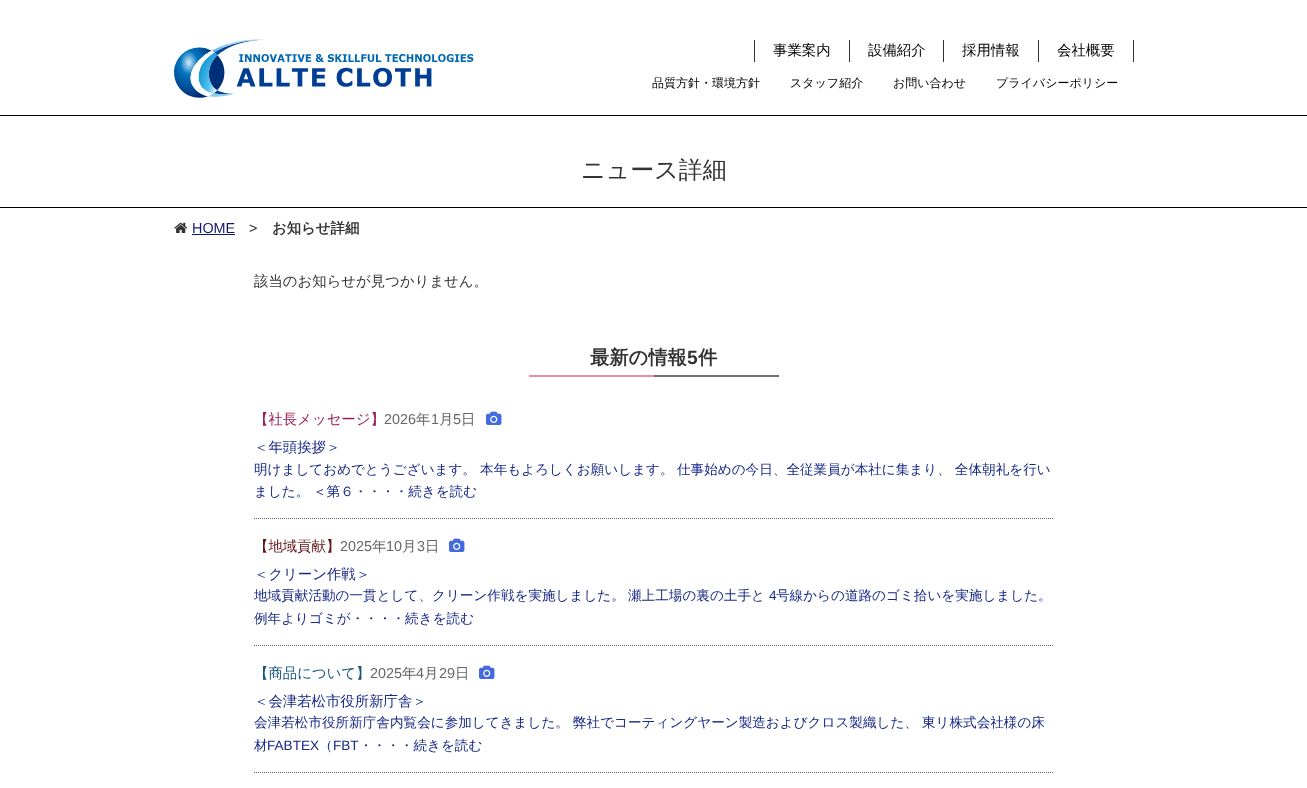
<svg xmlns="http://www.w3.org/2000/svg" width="1307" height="788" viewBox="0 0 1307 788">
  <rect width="100%" height="100%" fill="#ffffff"/>
  <rect x="0" y="115" width="1307" height="1" fill="#000000"/>
  <image x="174" y="39" width="300" height="59" href="img1.png"/>
  <rect x="849" y="40" width="1" height="22" fill="#333333"/>
  <rect x="754" y="40" width="1" height="22" fill="#333333"/>
  <text x="773" y="55" font-family="WenQuanYi Zen Hei" font-size="14.4" font-weight="500" fill="#000000">事業案内</text>
  <rect x="943" y="40" width="1" height="22" fill="#333333"/>
  <text x="868" y="55" font-family="WenQuanYi Zen Hei" font-size="14.4" font-weight="500" fill="#000000">設備紹介</text>
  <rect x="1038" y="40" width="1" height="22" fill="#333333"/>
  <text x="962" y="55" font-family="WenQuanYi Zen Hei" font-size="14.4" font-weight="500" fill="#000000">採用情報</text>
  <rect x="1133" y="40" width="1" height="22" fill="#333333"/>
  <text x="1057" y="55" font-family="WenQuanYi Zen Hei" font-size="14.4" font-weight="500" fill="#000000">会社概要</text>
  <text x="652" y="87" font-family="WenQuanYi Zen Hei" font-size="12" font-weight="500" fill="#000000">品質方針・環境方針</text>
  <text x="790" y="87" font-family="WenQuanYi Zen Hei" font-size="12" font-weight="500" fill="#000000">スタッフ紹介</text>
  <text x="893" y="87" font-family="WenQuanYi Zen Hei" font-size="12" font-weight="500" fill="#000000">お問い合わせ</text>
  <text x="996" y="87" font-family="WenQuanYi Zen Hei" font-size="12" font-weight="500" fill="#000000">プライバシーポリシー</text>
  <rect x="0" y="207" width="1307" height="1" fill="#000000"/>
  <text x="581" y="178" font-family="WenQuanYi Zen Hei" font-size="24" font-weight="500" fill="#333333">ニュース詳細</text>
  <image x="174" y="222" width="14" height="11" href="img2.png"/>
  <text x="192" y="233" font-family="Liberation Sans" font-size="14.4" fill="#121974">HOME</text>
  <rect x="192" y="234" width="43" height="1" fill="#121974"/>
  <text x="249" y="233" font-family="Liberation Sans" font-size="14.4" fill="#333333">&gt;</text>
  <text x="272" y="233" font-family="WenQuanYi Zen Hei" font-size="14.4" font-weight="bold" fill="#333333">お知らせ詳細</text>
  <text x="254" y="286" font-family="WenQuanYi Zen Hei" font-size="14.4" font-weight="500" fill="#333333">該当のお知らせが見つかりません。</text>
  <text x="590" y="364" font-family="WenQuanYi Zen Hei" font-size="19.25" font-weight="bold" fill="#333333">最新の情報</text>
  <text x="687" y="364" font-family="Liberation Sans" font-size="19.25" font-weight="bold" fill="#333333">5</text>
  <text x="698" y="364" font-family="WenQuanYi Zen Hei" font-size="19.25" font-weight="bold" fill="#333333">件</text>
  <rect x="529" y="375" width="125" height="2" fill="#ec8fac"/>
  <rect x="654" y="375" width="125" height="2" fill="#707070"/>
  <path d="M254 518.5H1054" fill="none" stroke="#656767" stroke-dasharray="1 1"/>
  <text x="254" y="424" font-family="WenQuanYi Zen Hei" font-size="14.4" font-weight="500" fill="#9a1c59">【社長メッセージ】</text>
  <text x="384" y="424" font-family="Liberation Sans" font-size="14.4" fill="#666767">2026</text>
  <text x="416" y="424" font-family="WenQuanYi Zen Hei" font-size="14.4" font-weight="500" fill="#666767">年</text>
  <text x="431" y="424" font-family="Liberation Sans" font-size="14.4" fill="#666767">1</text>
  <text x="439" y="424" font-family="WenQuanYi Zen Hei" font-size="14.4" font-weight="500" fill="#666767">月</text>
  <text x="453" y="424" font-family="Liberation Sans" font-size="14.4" fill="#666767">5</text>
  <text x="461" y="424" font-family="WenQuanYi Zen Hei" font-size="14.4" font-weight="500" fill="#666767">日</text>
  <image x="486" y="411" width="16" height="14" href="img3.png"/>
  <text x="254" y="452" font-family="WenQuanYi Zen Hei" font-size="14.4" font-weight="500" fill="#172886">＜年頭挨拶＞</text>
  <text x="254" y="474" font-family="WenQuanYi Zen Hei" font-size="13.6" font-weight="500" fill="#172886">明けましておめでとうございます。 本年もよろしくお願いします。</text>
  <text x="677" y="474" font-family="WenQuanYi Zen Hei" font-size="13.6" font-weight="500" fill="#172886">仕事始めの今日、全従業員が本社に集まり、 全体朝礼を行い</text>
  <text x="254" y="496" font-family="WenQuanYi Zen Hei" font-size="13.6" font-weight="500" fill="#172886">ました。</text>
  <text x="313" y="496" font-family="WenQuanYi Zen Hei" font-size="13.6" font-weight="500" fill="#172886">＜第６・・・・続きを読む</text>
  <path d="M254 645.5H1054" fill="none" stroke="#656767" stroke-dasharray="1 1"/>
  <text x="254" y="551" font-family="WenQuanYi Zen Hei" font-size="14.4" font-weight="500" fill="#641219">【地域貢献】</text>
  <text x="340" y="551" font-family="Liberation Sans" font-size="14.4" fill="#666767">2025</text>
  <text x="372" y="551" font-family="WenQuanYi Zen Hei" font-size="14.4" font-weight="500" fill="#666767">年</text>
  <text x="386" y="551" font-family="Liberation Sans" font-size="14.4" fill="#666767">10</text>
  <text x="402" y="551" font-family="WenQuanYi Zen Hei" font-size="14.4" font-weight="500" fill="#666767">月</text>
  <text x="417" y="551" font-family="Liberation Sans" font-size="14.4" fill="#666767">3</text>
  <text x="425" y="551" font-family="WenQuanYi Zen Hei" font-size="14.4" font-weight="500" fill="#666767">日</text>
  <image x="449" y="538" width="16" height="14" href="img3.png"/>
  <text x="254" y="579" font-family="WenQuanYi Zen Hei" font-size="14.4" font-weight="500" fill="#172886">＜クリーン作戦＞</text>
  <text x="254" y="600" font-family="WenQuanYi Zen Hei" font-size="13.6" font-weight="500" fill="#172886">地域貢献活動の一貫として、クリーン作戦を実施しました。</text>
  <text x="628" y="600" font-family="WenQuanYi Zen Hei" font-size="13.6" font-weight="500" fill="#172886">瀬上工場の裏の土手と</text>
  <text x="769" y="600" font-family="Liberation Sans" font-size="13.6" fill="#172886">4</text>
  <text x="776" y="600" font-family="WenQuanYi Zen Hei" font-size="13.6" font-weight="500" fill="#172886">号線からの道路のゴミ拾いを実施しました。</text>
  <text x="254" y="623" font-family="WenQuanYi Zen Hei" font-size="13.6" font-weight="500" fill="#172886">例年よりゴミが・・・・続きを読む</text>
  <path d="M254 772.5H1054" fill="none" stroke="#656767" stroke-dasharray="1 1"/>
  <text x="254" y="678" font-family="WenQuanYi Zen Hei" font-size="14.4" font-weight="500" fill="#13547e">【商品について】</text>
  <text x="370" y="678" font-family="Liberation Sans" font-size="14.4" fill="#666767">2025</text>
  <text x="402" y="678" font-family="WenQuanYi Zen Hei" font-size="14.4" font-weight="500" fill="#666767">年</text>
  <text x="416" y="678" font-family="Liberation Sans" font-size="14.4" fill="#666767">4</text>
  <text x="424" y="678" font-family="WenQuanYi Zen Hei" font-size="14.4" font-weight="500" fill="#666767">月</text>
  <text x="439" y="678" font-family="Liberation Sans" font-size="14.4" fill="#666767">29</text>
  <text x="455" y="678" font-family="WenQuanYi Zen Hei" font-size="14.4" font-weight="500" fill="#666767">日</text>
  <image x="479" y="665" width="16" height="14" href="img3.png"/>
  <text x="254" y="706" font-family="WenQuanYi Zen Hei" font-size="14.4" font-weight="500" fill="#172886">＜会津若松市役所新庁舎＞</text>
  <text x="254" y="727" font-family="WenQuanYi Zen Hei" font-size="13.6" font-weight="500" fill="#172886">会津若松市役所新庁舎内覧会に参加してきました。 弊社でコーティングヤーン製造およびクロス製織した、 東リ株式会社様の床</text>
  <text x="254" y="750" font-family="WenQuanYi Zen Hei" font-size="13.6" font-weight="500" fill="#172886">材</text>
  <text x="267" y="750" font-family="Liberation Sans" font-size="13.6" fill="#172886">FABTEX</text>
  <text x="319" y="750" font-family="WenQuanYi Zen Hei" font-size="13.6" font-weight="500" fill="#172886">（</text>
  <text x="333" y="750" font-family="Liberation Sans" font-size="13.6" fill="#172886">FBT</text>
  <text x="359" y="750" font-family="WenQuanYi Zen Hei" font-size="13.6" font-weight="500" fill="#172886">・・・・続きを読む</text>
</svg>
